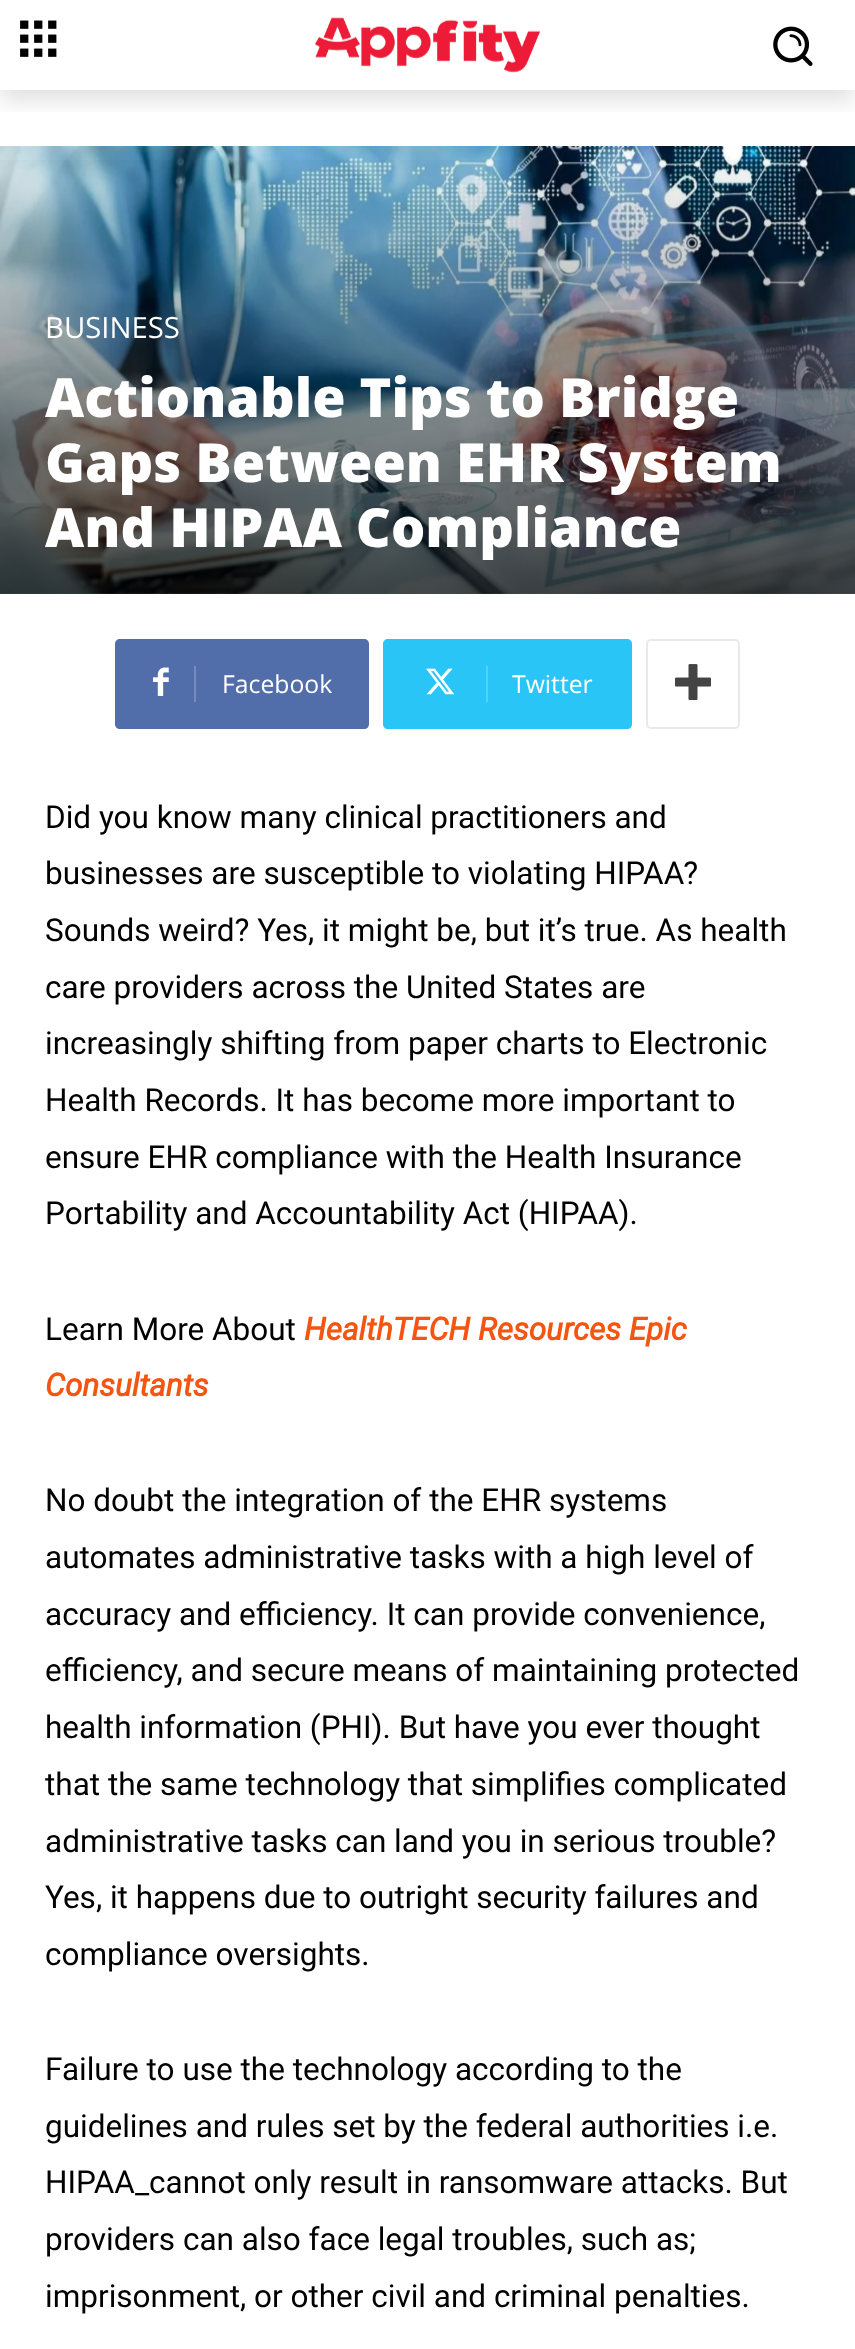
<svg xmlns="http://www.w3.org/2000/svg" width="855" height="2349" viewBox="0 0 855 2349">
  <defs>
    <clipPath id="clip1"><rect x="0" y="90" width="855" height="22"/></clipPath>
    <filter id="blur1" x="-50%" y="-200%" width="200%" height="500%"><feGaussianBlur stdDeviation="11"/></filter>
    <linearGradient id="g1" gradientUnits="userSpaceOnUse" x1="428" y1="594" x2="428" y2="146"><stop offset="0" stop-color="#000000" stop-opacity="0.7"/><stop offset="1" stop-color="#000000" stop-opacity="0"/></linearGradient>
  </defs>
  <rect width="100%" height="100%" fill="#ffffff"/>
  <image x="20" y="20" width="37" height="37" href="img1.png"/>
  <image x="315" y="17" width="225" height="56" href="img2.png"/>
  <image x="773" y="26" width="40" height="40" href="img3.png"/>
  <g clip-path="url(#clip1)">
    <rect x="0" y="11" width="855" height="90" fill="#000000" fill-opacity="0.12" filter="url(#blur1)"/>
  </g>
  <image x="0" y="146" width="855" height="448" href="img4.png"/>
  <rect x="0" y="160" width="855" height="434" fill="url(#g1)"/>
  <text x="45" y="338" font-family="Open Sans" font-size="29.25" fill="#ffffff">BUSINESS</text>
  <text x="45" y="417" font-family="Open Sans" font-size="54" font-weight="800" fill="#ffffff">Actionable Tips to Bridge</text>
  <text x="45" y="482" font-family="Open Sans" font-size="54" font-weight="800" fill="#ffffff">Gaps Between EHR System</text>
  <text x="45" y="547" font-family="Open Sans" font-size="54" font-weight="800" fill="#ffffff">And HIPAA Compliance</text>
  <path d="M194 639H364C367 639 369 641 369 644V724C369 727 367 729 364 729H194Z" fill="#516eab"/>
  <path d="M120 639H207V729H120C117 729 115 727 115 724V644C115 641 117 639 120 639Z" fill="#516eab"/>
  <image x="153" y="667" width="16" height="29" href="img5.png"/>
  <rect x="194" y="666" width="2" height="36" fill="#748bbc"/>
  <text x="222" y="693" font-family="Open Sans" font-size="24.75" fill="#ffffff">Facebook</text>
  <path d="M486 639H627C630 639 632 641 632 644V724C632 727 630 729 627 729H486Z" fill="#29c5f6"/>
  <path d="M388 639H500V729H388C385 729 383 727 383 724V644C383 641 385 639 388 639Z" fill="#29c5f6"/>
  <image x="426" y="668" width="29" height="27" href="img6.png"/>
  <rect x="486" y="666" width="2" height="36" fill="#54d1f8"/>
  <text x="512" y="693" font-family="Open Sans" font-size="24.75" fill="#ffffff">Twitter</text>
  <rect x="647" y="640" width="92" height="88" rx="4" fill="none" stroke="#e9e9e9" stroke-width="2"/>
  <image x="675" y="664" width="36" height="37" href="img7.png"/>
  <text x="45" y="828" font-family="Roboto" font-size="31.5" fill="#000000">Did you know many clinical practitioners and</text>
  <text x="45" y="884" font-family="Roboto" font-size="31.5" fill="#000000">businesses are susceptible to violating HIPAA?</text>
  <text x="45" y="941" font-family="Roboto" font-size="31.5" fill="#000000">Sounds weird? Yes, it might be, but it’s true. As health</text>
  <text x="45" y="998" font-family="Roboto" font-size="31.5" fill="#000000">care providers across the United States are</text>
  <text x="45" y="1054" font-family="Roboto" font-size="31.5" fill="#000000">increasingly shifting from paper charts to Electronic</text>
  <text x="45" y="1111" font-family="Roboto" font-size="31.5" fill="#000000">Health Records. It has become more important to</text>
  <text x="45" y="1168" font-family="Roboto" font-size="31.5" fill="#000000">ensure EHR compliance with the Health Insurance</text>
  <text x="45" y="1224" font-family="Roboto" font-size="31.5" fill="#000000">Portability and Accountability Act (HIPAA).</text>
  <text x="45" y="1340" font-family="Roboto" font-size="31.5" fill="#000000">Learn More About</text>
  <text x="304" y="1340" font-family="Roboto" font-size="31.5" font-weight="bold" font-style="italic" fill="#f45511">HealthTECH Resources Epic</text>
  <text x="45" y="1396" font-family="Roboto" font-size="31.5" font-weight="bold" font-style="italic" fill="#f45511">Consultants</text>
  <text x="45" y="1511" font-family="Roboto" font-size="31.5" fill="#000000">No doubt the integration of the EHR systems</text>
  <text x="45" y="1568" font-family="Roboto" font-size="31.5" fill="#000000">automates administrative tasks with a high level of</text>
  <text x="45" y="1625" font-family="Roboto" font-size="31.5" fill="#000000">accuracy and efficiency. It can provide convenience,</text>
  <text x="45" y="1681" font-family="Roboto" font-size="31.5" fill="#000000">efficiency, and secure means of maintaining protected</text>
  <text x="45" y="1738" font-family="Roboto" font-size="31.5" fill="#000000">health information (PHI). But have you ever thought</text>
  <text x="45" y="1795" font-family="Roboto" font-size="31.5" fill="#000000">that the same technology that simplifies complicated</text>
  <text x="45" y="1852" font-family="Roboto" font-size="31.5" fill="#000000">administrative tasks can land you in serious trouble?</text>
  <text x="45" y="1908" font-family="Roboto" font-size="31.5" fill="#000000">Yes, it happens due to outright security failures and</text>
  <text x="45" y="1965" font-family="Roboto" font-size="31.5" fill="#000000">compliance oversights.</text>
  <text x="45" y="2080" font-family="Roboto" font-size="31.5" fill="#000000">Failure to use the technology according to the</text>
  <text x="45" y="2137" font-family="Roboto" font-size="31.5" fill="#000000">guidelines and rules set by the federal authorities i.e.</text>
  <text x="45" y="2193" font-family="Roboto" font-size="31.5" fill="#000000">HIPAA_cannot only result in ransomware attacks. But</text>
  <text x="45" y="2250" font-family="Roboto" font-size="31.5" fill="#000000">providers can also face legal troubles, such as;</text>
  <text x="45" y="2307" font-family="Roboto" font-size="31.5" fill="#000000">imprisonment, or other civil and criminal penalties.</text>
</svg>
